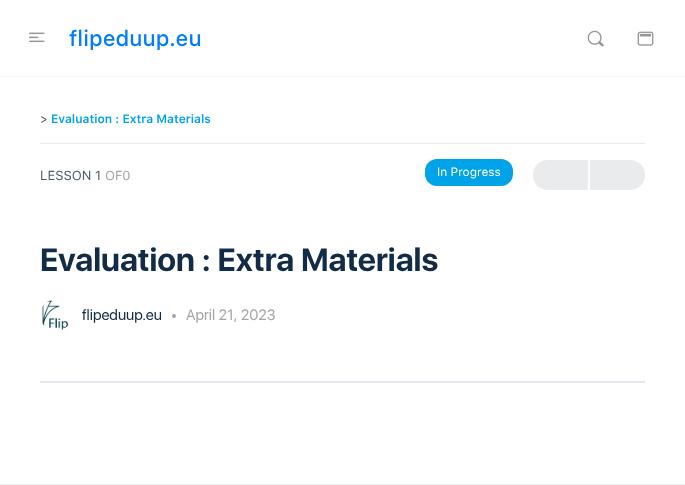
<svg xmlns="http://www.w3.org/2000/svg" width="685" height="485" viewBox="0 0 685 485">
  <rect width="100%" height="100%" fill="#ffffff"/>
  <rect x="0" y="76" width="685" height="1" fill="#f6f7f8"/>
  <image x="29" y="32" width="16" height="11" href="img1.png"/>
  <text x="69" y="46" font-family="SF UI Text" font-size="22" font-weight="500" fill="#007cff">flipeduup.eu</text>
  <image x="587" y="30" width="17" height="17" href="img2.png"/>
  <image x="637" y="31" width="17" height="15" href="img3.png"/>
  <rect x="0" y="484" width="685" height="1" fill="#e7e9ec"/>
  <rect x="40" y="143" width="605" height="1" fill="#e7e9ec"/>
  <text x="40" y="123" font-family="SF UI Text" font-size="12" fill="#4d5c6d">&gt;</text>
  <text x="51" y="123" font-family="SF UI Text" font-size="12" font-weight="600" fill="#00a2e8">Evaluation : Extra Materials</text>
  <text x="40" y="180" font-family="SF UI Text" font-size="13" fill="#4d5c6d">LESSON 1</text>
  <text x="105" y="180" font-family="SF UI Text" font-size="13" fill="#a3a5a9">OF0</text>
  <rect x="425" y="159" width="88" height="27" rx="12" fill="#00a2e8"/>
  <text x="437" y="176" font-family="SF UI Text" font-size="12" fill="#ffffff">In Progress</text>
  <path d="M548 160H588V190H548C539.5 190 533 183.5 533 175C533 166.5 539.5 160 548 160Z" fill="#e9ebed"/>
  <path d="M590 160H630C638.5 160 645 166.5 645 175C645 183.5 638.5 190 630 190H590Z" fill="#e9ebed"/>
  <text x="40" y="271" font-family="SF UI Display" font-size="32" font-weight="bold" fill="#122b46">Evaluation : Extra Materials</text>
  <image x="42" y="300" width="27" height="30" href="img4.png"/>
  <text x="82" y="320" font-family="SF UI Display" font-size="15" fill="#122b46">flipeduup.eu</text>
  <circle cx="174" cy="316" r="2" fill="#a3a5a9"/>
  <text x="186" y="320" font-family="SF UI Display" font-size="15" fill="#a3a5a9">April 21, 2023</text>
  <rect x="40" y="381" width="605" height="2" fill="#e2e7ed"/>
</svg>
